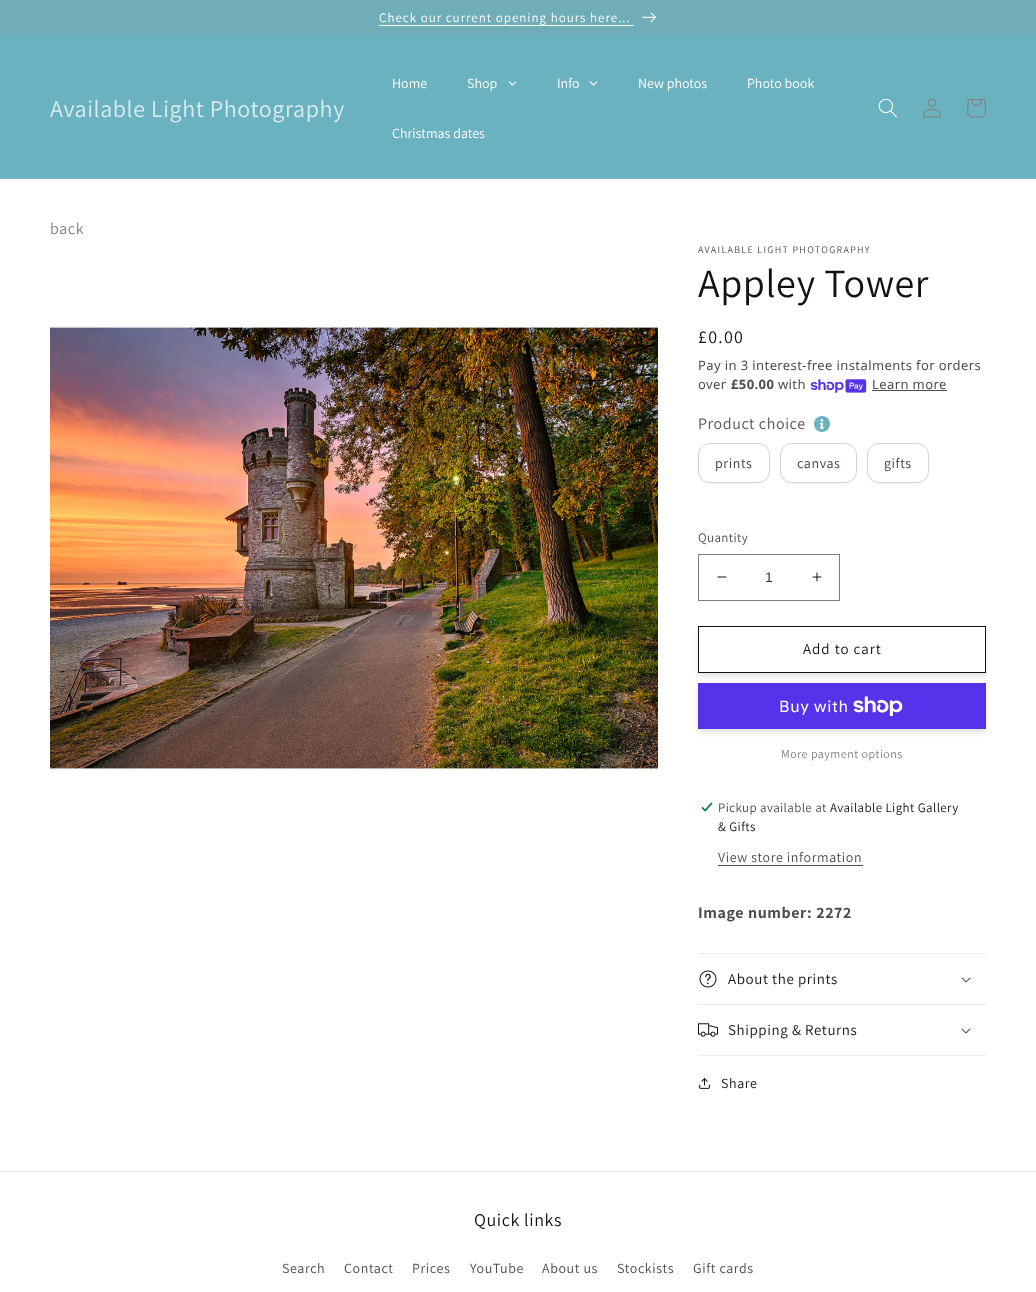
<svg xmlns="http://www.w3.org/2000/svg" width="1036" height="1292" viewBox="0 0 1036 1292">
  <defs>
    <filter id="blur1" x="-50%" y="-200%" width="200%" height="500%"><feGaussianBlur stdDeviation="1"/></filter>
    <clipPath id="clip1"><path d="M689 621H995V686H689ZM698 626H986V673H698Z" clip-rule="evenodd"/></clipPath>
    <filter id="blur2" x="-50%" y="-200%" width="200%" height="500%"><feGaussianBlur stdDeviation="2.5"/></filter>
  </defs>
  <rect width="100%" height="100%" fill="#ffffff"/>
  <rect x="0" y="37" width="1036" height="1" fill="#72afba"/>
  <rect x="0" y="0" width="1036" height="37" fill="#6fadb9"/>
  <text x="379" y="22" font-family="Assistant" font-size="13" font-weight="200" letter-spacing="1" fill="#ffffff">Check our current opening hours here...</text>
  <rect x="379" y="25" width="255" height="1" fill="#ffffff"/>
  <image x="642" y="12" width="14" height="11" href="img1.png"/>
  <rect x="0" y="38" width="1036" height="140" fill="#6ab2bf"/>
  <rect x="0" y="178" width="1036" height="1" fill="#76b8c4"/>
  <text x="50" y="117" font-family="Assistant" font-size="24" font-weight="200" letter-spacing="0.6" fill="#daecef">Available Light Photography</text>
  <text x="392" y="88" font-family="Assistant" font-size="14" font-weight="200" fill="#ffffff">Home</text>
  <text x="467" y="88" font-family="Assistant" font-size="14" font-weight="200" fill="#ffffff">Shop</text>
  <image x="508" y="81" width="9" height="5" href="img2.png"/>
  <text x="557" y="88" font-family="Assistant" font-size="14" font-weight="200" fill="#ffffff">Info</text>
  <image x="589" y="81" width="9" height="5" href="img2.png"/>
  <text x="638" y="88" font-family="Assistant" font-size="14" font-weight="200" fill="#ffffff">New photos</text>
  <text x="747" y="88" font-family="Assistant" font-size="14" font-weight="200" fill="#ffffff">Photo book</text>
  <text x="392" y="138" font-family="Assistant" font-size="14" font-weight="200" fill="#ffffff">Christmas dates</text>
  <image x="878" y="98" width="19" height="20" href="img3.png"/>
  <image x="923" y="98" width="18" height="20" href="img4.png"/>
  <image x="967" y="99" width="20" height="19" href="img5.png"/>
  <text x="50" y="234" font-family="Assistant" font-size="16" font-weight="200" letter-spacing="0.6" fill="#808080">back</text>
  <image x="50" y="326" width="608" height="444" href="img6.png"/>
  <text x="698" y="253" font-family="Assistant" font-size="10" font-weight="200" letter-spacing="1.3" fill="#4d4d4d">AVAILABLE LIGHT PHOTOGRAPHY</text>
  <text x="698" y="297" font-family="Assistant" font-size="40" font-weight="200" letter-spacing="0.6" fill="#121212">Appley Tower</text>
  <text x="698" y="343" font-family="Assistant" font-size="18" font-weight="200" letter-spacing="1.3" fill="#121212">£0.00</text>
  <text x="698" y="370" font-family="Noto Sans" font-size="13" letter-spacing="0.4" fill="#4d4d4d">Pay in 3 interest-free instalments for orders</text>
  <text x="698" y="389" font-family="Noto Sans" font-size="13" letter-spacing="0.4" fill="#4d4d4d">over</text>
  <text x="731" y="389" font-family="Noto Sans" font-size="13" font-weight="bold" letter-spacing="0.4" fill="#4d4d4d">£50.00</text>
  <text x="778" y="389" font-family="Noto Sans" font-size="13" letter-spacing="0.4" fill="#4d4d4d">with</text>
  <image x="810" y="379" width="57" height="14" href="img7.png"/>
  <text x="872" y="389" font-family="Noto Sans" font-size="13" letter-spacing="0.4" fill="#4d4d4d">Learn more</text>
  <rect x="872" y="390" width="75" height="1" fill="#4d4d4d"/>
  <text x="698" y="429" font-family="Assistant" font-size="16" font-weight="200" letter-spacing="0.6" fill="#555555">Product choice</text>
  <circle cx="822" cy="424" r="8" fill="#6ab2bf"/>
  <image x="820" y="419" width="4" height="10" href="img8.png"/>
  <rect x="698" y="444" width="72" height="40" rx="12" fill="#000000" fill-opacity="0.05" filter="url(#blur1)"/>
  <rect x="698.5" y="443.5" width="71" height="39" rx="11.5" fill="#ffffff" stroke="#d1d5db"/>
  <text x="715" y="468" font-family="Assistant" font-size="14" font-weight="200" letter-spacing="0.6" fill="#374151">prints</text>
  <rect x="780" y="444" width="77" height="40" rx="12" fill="#000000" fill-opacity="0.05" filter="url(#blur1)"/>
  <rect x="780.5" y="443.5" width="76" height="39" rx="11.5" fill="#ffffff" stroke="#d1d5db"/>
  <text x="797" y="468" font-family="Assistant" font-size="14" font-weight="200" letter-spacing="0.6" fill="#374151">canvas</text>
  <rect x="867" y="444" width="62" height="40" rx="12" fill="#000000" fill-opacity="0.05" filter="url(#blur1)"/>
  <rect x="867.5" y="443.5" width="61" height="39" rx="11.5" fill="#ffffff" stroke="#d1d5db"/>
  <text x="884" y="468" font-family="Assistant" font-size="14" font-weight="200" letter-spacing="0.6" fill="#374151">gifts</text>
  <text x="698" y="542" font-family="Assistant" font-size="13" font-weight="200" letter-spacing="0.4" fill="#4d4d4d">Quantity</text>
  <image x="717" y="576" width="10" height="2" href="img9.png"/>
  <image x="812" y="572" width="10" height="10" href="img10.png"/>
  <rect x="698.5" y="554.5" width="141" height="46" fill="none" stroke="#7d7d7d"/>
  <text x="765" y="582" font-family="Liberation Sans" font-size="14" fill="#363636">1</text>
  <g clip-path="url(#clip1)">
    <rect x="698" y="630" width="288" height="47" fill="#121212" fill-opacity="0.1" filter="url(#blur2)"/>
  </g>
  <rect x="698.5" y="626.5" width="287" height="46" fill="none" stroke="#121212"/>
  <text x="803" y="654" font-family="Assistant" font-size="15" font-weight="200" letter-spacing="1" fill="#121212">Add to cart</text>
  <rect x="698" y="687" width="288" height="46" fill="#121212" fill-opacity="0.1" filter="url(#blur2)"/>
  <rect x="698" y="683" width="288" height="46" fill="#5433eb"/>
  <text x="779" y="712" font-family="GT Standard" font-size="16" letter-spacing="0.6" fill="#ffffff">Buy with</text>
  <image x="853" y="696" width="50" height="20" href="img11.png"/>
  <text x="781" y="758" font-family="Assistant" font-size="12" font-weight="200" letter-spacing="0.5" fill="#808080">More payment options</text>
  <image x="701" y="802" width="12" height="10" href="img12.png"/>
  <text x="718" y="812" font-family="Assistant" font-size="13" font-weight="200" letter-spacing="0.4" fill="#4d4d4d">Pickup available at</text>
  <text x="830" y="812" font-family="Assistant" font-size="13" font-weight="200" letter-spacing="0.4" fill="#121212">Available Light Gallery</text>
  <text x="718" y="831" font-family="Assistant" font-size="13" font-weight="200" letter-spacing="0.4" fill="#121212">&amp; Gifts</text>
  <text x="718" y="862" font-family="Assistant" font-size="14" font-weight="200" letter-spacing="0.6" fill="#4d4d4d">View store information</text>
  <rect x="718" y="865" width="145" height="1" fill="#4d4d4d"/>
  <text x="698" y="918" font-family="Assistant" font-size="16" font-weight="bold" letter-spacing="0.6" fill="#4d4d4d">Image number: 2272</text>
  <rect x="698" y="953" width="288" height="1" fill="#ececec"/>
  <rect x="698" y="1004" width="288" height="1" fill="#ececec"/>
  <image x="699" y="970" width="18" height="18" href="img13.png"/>
  <text x="728" y="984" font-family="Assistant" font-size="15" font-weight="200" letter-spacing="0.6" fill="#121212">About the prints</text>
  <image x="961" y="977" width="10" height="6" href="img14.png"/>
  <rect x="698" y="1055" width="288" height="1" fill="#ececec"/>
  <image x="698" y="1023" width="20" height="14" href="img15.png"/>
  <text x="728" y="1035" font-family="Assistant" font-size="15" font-weight="200" letter-spacing="0.6" fill="#121212">Shipping &amp; Returns</text>
  <image x="961" y="1028" width="10" height="6" href="img14.png"/>
  <image x="699" y="1078" width="11" height="11" href="img16.png"/>
  <text x="721" y="1088" font-family="Assistant" font-size="14" font-weight="200" letter-spacing="0.6" fill="#121212">Share</text>
  <rect x="0" y="1171" width="1036" height="1" fill="#ececec"/>
  <text x="474" y="1226" font-family="Assistant" font-size="18" font-weight="200" letter-spacing="0.6" fill="#121212">Quick links</text>
  <text x="282" y="1273" font-family="Assistant" font-size="14" font-weight="200" letter-spacing="0.6" fill="#4d4d4d">Search</text>
  <text x="344" y="1273" font-family="Assistant" font-size="14" font-weight="200" letter-spacing="0.6" fill="#4d4d4d">Contact</text>
  <text x="412" y="1273" font-family="Assistant" font-size="14" font-weight="200" letter-spacing="0.6" fill="#4d4d4d">Prices</text>
  <text x="470" y="1273" font-family="Assistant" font-size="14" font-weight="200" letter-spacing="0.6" fill="#4d4d4d">YouTube</text>
  <text x="542" y="1273" font-family="Assistant" font-size="14" font-weight="200" letter-spacing="0.6" fill="#4d4d4d">About us</text>
  <text x="617" y="1273" font-family="Assistant" font-size="14" font-weight="200" letter-spacing="0.6" fill="#4d4d4d">Stockists</text>
  <text x="693" y="1273" font-family="Assistant" font-size="14" font-weight="200" letter-spacing="0.6" fill="#4d4d4d">Gift cards</text>
</svg>
